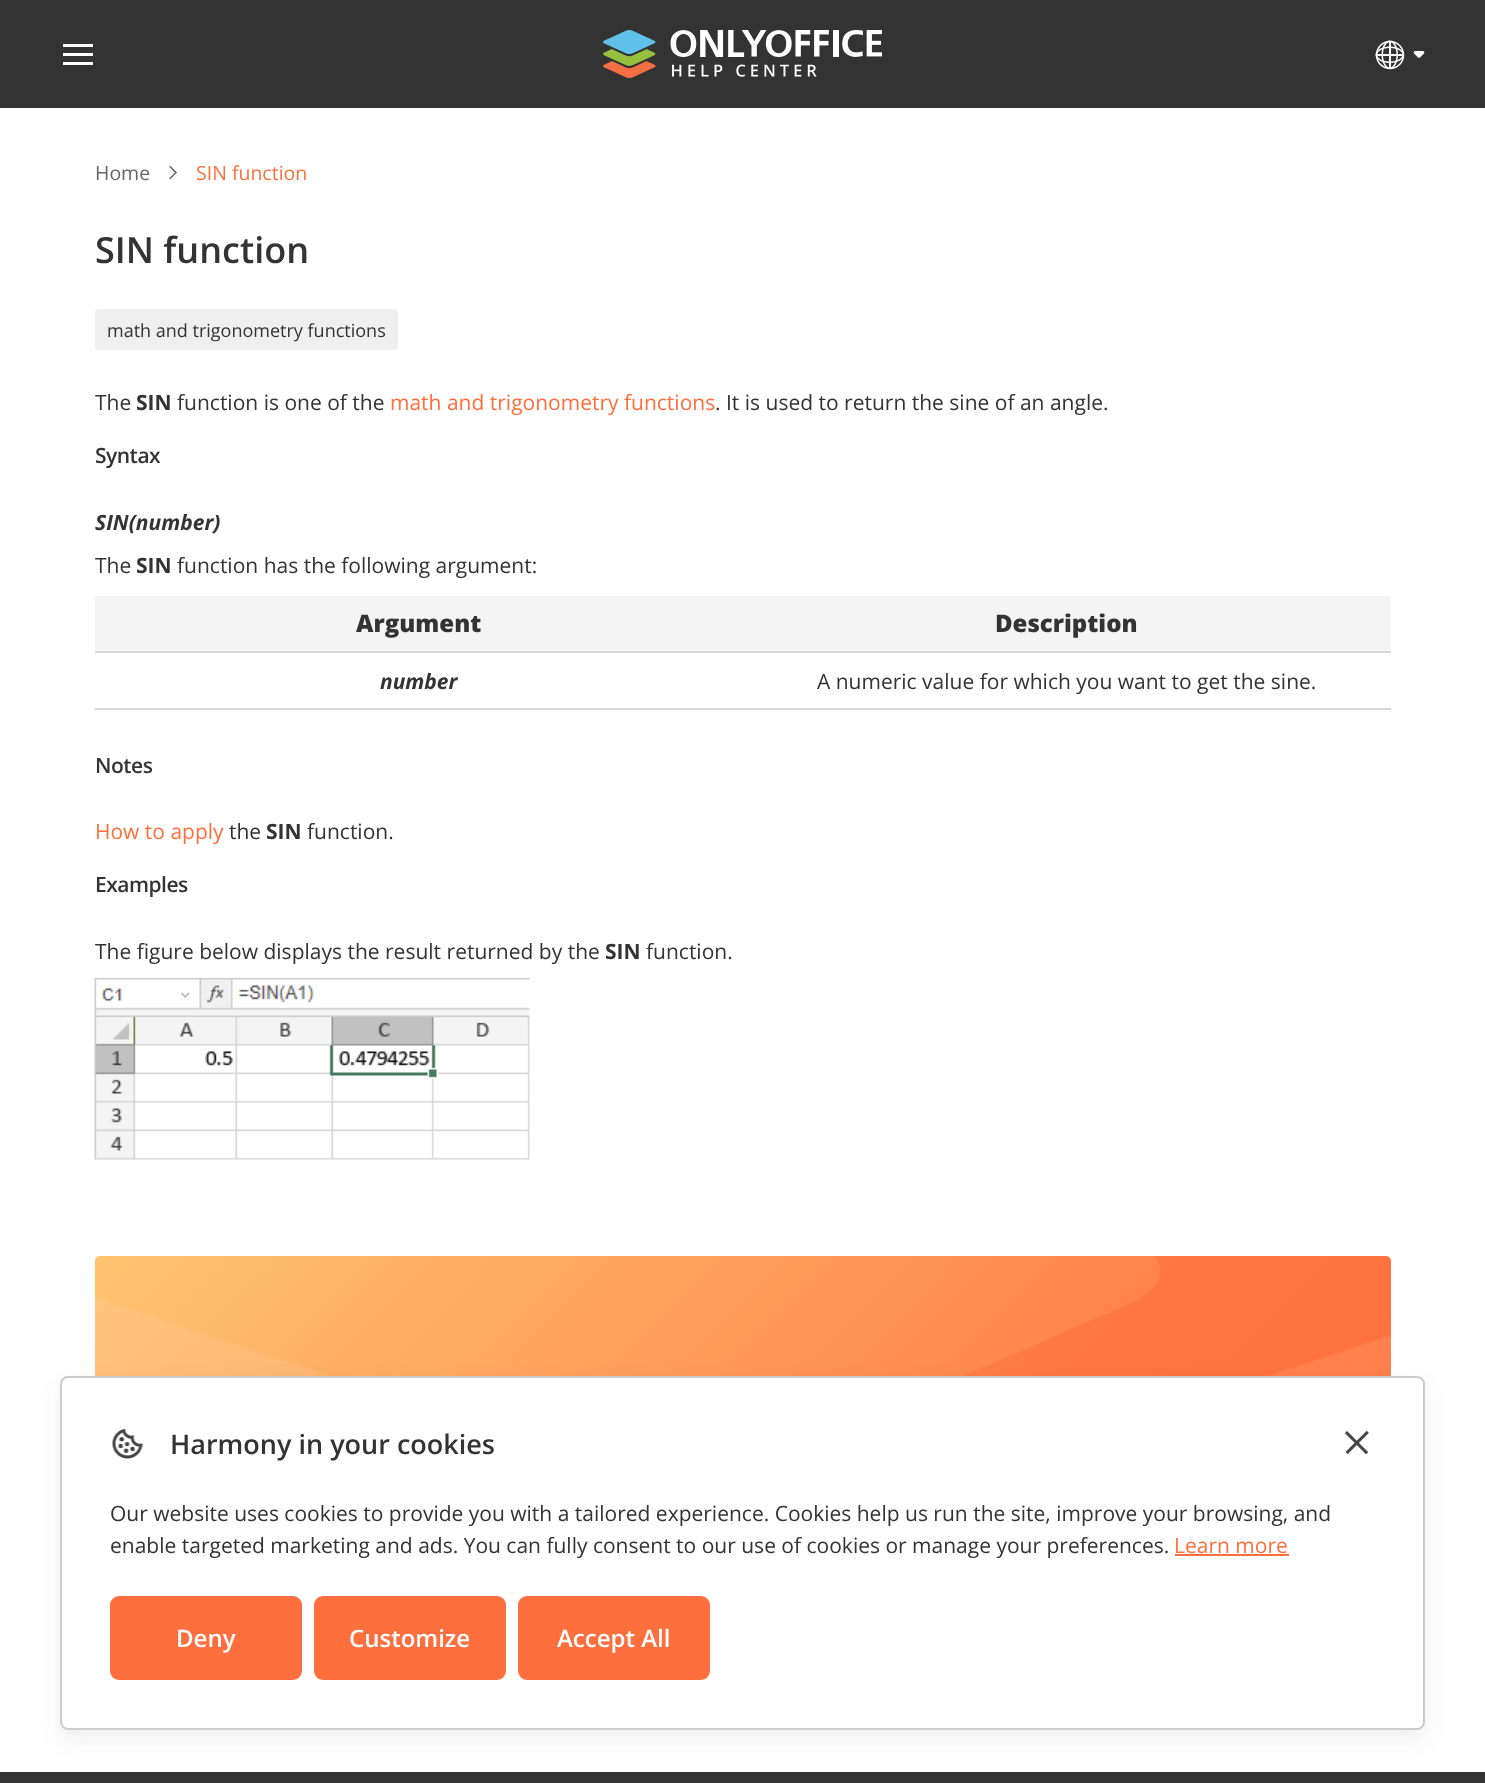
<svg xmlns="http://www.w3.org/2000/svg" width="1485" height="1783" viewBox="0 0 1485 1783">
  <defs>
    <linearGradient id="g1" gradientUnits="userSpaceOnUse" x1="313" y1="1037" x2="1172" y2="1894"><stop offset="0" stop-color="#ffc671"/><stop offset="0.64" stop-color="#ff7541"/><stop offset="1" stop-color="#ff6f3d"/></linearGradient>
    <filter id="blur1" x="-50%" y="-200%" width="200%" height="500%"><feGaussianBlur stdDeviation="11"/></filter>
  </defs>
  <rect width="100%" height="100%" fill="#ffffff"/>
  <rect x="0" y="0" width="1485" height="108" fill="#333333"/>
  <rect x="63" y="44" width="30" height="3" fill="#ffffff"/>
  <rect x="63" y="53" width="30" height="3" fill="#ffffff"/>
  <rect x="63" y="62" width="30" height="3" fill="#ffffff"/>
  <image x="603" y="30" width="279" height="48" href="img1.png"/>
  <image x="1375" y="40" width="30" height="30" href="img2.png"/>
  <image x="1413" y="51" width="12" height="7" href="img3.png"/>
  <text x="95" y="180" font-family="Open Sans" font-size="19.5" fill="#666666">Home</text>
  <path d="M170 178.5L176 172.5L170 166.5" fill="none" stroke="#666666" stroke-width="1.5" stroke-linecap="round"/>
  <text x="196" y="180" font-family="Open Sans" font-size="19.5" fill="#ff6f3d">SIN function</text>
  <text x="95" y="263" font-family="Open Sans" font-size="36" font-weight="600" fill="#333333">SIN function</text>
  <rect x="95" y="309" width="303" height="41" rx="3" fill="#efefef"/>
  <text x="107" y="337" font-family="Open Sans" font-size="18" fill="#333333">math and trigonometry functions</text>
  <text x="95" y="410" font-family="Open Sans" font-size="21" fill="#333333">The</text>
  <text x="136" y="410" font-family="Open Sans" font-size="21" font-weight="bold" fill="#333333">SIN</text>
  <text x="177" y="410" font-family="Open Sans" font-size="21" fill="#333333">function is one of the</text>
  <text x="390" y="410" font-family="Open Sans" font-size="21" fill="#ff6f3d">math and trigonometry functions</text>
  <text x="715" y="410" font-family="Open Sans" font-size="21" fill="#333333">. It is used to return the sine of an angle.</text>
  <text x="95" y="463" font-family="Open Sans" font-size="21" font-weight="600" letter-spacing="-0.5" fill="#333333">Syntax</text>
  <text x="95" y="530" font-family="Open Sans" font-size="21" font-weight="bold" font-style="italic" fill="#333333">SIN(number)</text>
  <text x="95" y="573" font-family="Open Sans" font-size="21" fill="#333333">The</text>
  <text x="136" y="573" font-family="Open Sans" font-size="21" font-weight="bold" fill="#333333">SIN</text>
  <text x="177" y="573" font-family="Open Sans" font-size="21" fill="#333333">function has the following argument:</text>
  <rect x="95" y="596" width="1296" height="55" fill="#f4f4f4"/>
  <rect x="95" y="651" width="1296" height="2" fill="#d7d8dc"/>
  <text x="356" y="632" font-family="Open Sans" font-size="24" font-weight="800" fill="#333333">Argument</text>
  <text x="995" y="632" font-family="Open Sans" font-size="24" font-weight="800" fill="#333333">Description</text>
  <rect x="95" y="708" width="1296" height="2" fill="#d7d8dc"/>
  <text x="380" y="689" font-family="Open Sans" font-size="21" font-weight="bold" font-style="italic" fill="#333333">number</text>
  <text x="817" y="689" font-family="Open Sans" font-size="21" fill="#333333">A numeric value for which you want to get the sine.</text>
  <text x="95" y="773" font-family="Open Sans" font-size="21" font-weight="600" letter-spacing="-0.5" fill="#333333">Notes</text>
  <text x="95" y="839" font-family="Open Sans" font-size="21" fill="#ff6f3d">How to apply</text>
  <text x="229" y="839" font-family="Open Sans" font-size="21" fill="#333333">the</text>
  <text x="266" y="839" font-family="Open Sans" font-size="21" font-weight="bold" fill="#333333">SIN</text>
  <text x="307" y="839" font-family="Open Sans" font-size="21" fill="#333333">function.</text>
  <text x="95" y="892" font-family="Open Sans" font-size="21" font-weight="600" letter-spacing="-0.5" fill="#333333">Examples</text>
  <text x="95" y="959" font-family="Open Sans" font-size="21" fill="#333333">The figure below displays the result returned by the</text>
  <text x="605" y="959" font-family="Open Sans" font-size="21" font-weight="bold" fill="#333333">SIN</text>
  <text x="646" y="959" font-family="Open Sans" font-size="21" fill="#333333">function.</text>
  <image x="94" y="978" width="436" height="182" href="img4.png"/>
  <rect x="95" y="1256" width="1296" height="420" rx="5" fill="url(#g1)"/>
  <image x="95" y="1256" width="1296" height="120" href="img5.png"/>
  <rect x="0" y="1772" width="1485" height="11" fill="#333333"/>
  <rect x="60" y="1386" width="1365" height="354" rx="8" fill="#555555" fill-opacity="0.1" filter="url(#blur1)"/>
  <rect x="61" y="1377" width="1363" height="352" rx="7" fill="#ffffff" stroke="#cccccc" stroke-width="2"/>
  <image x="112" y="1428" width="31" height="31" href="img6.png"/>
  <text x="170" y="1454" font-family="Open Sans" font-size="27" font-weight="600" fill="#333333">Harmony in your cookies</text>
  <image x="1345" y="1430" width="24" height="25" href="img7.png"/>
  <text x="110" y="1521" font-family="Open Sans" font-size="21" fill="#333333">Our website uses cookies to provide you with a tailored experience. Cookies help us run the site, improve your browsing, and</text>
  <text x="110" y="1553" font-family="Open Sans" font-size="21" fill="#333333">enable targeted marketing and ads. You can fully consent to our use of cookies or manage your preferences.</text>
  <text x="1174" y="1553" font-family="Open Sans" font-size="21" fill="#ff6f3d">Learn more</text>
  <rect x="1175" y="1554" width="114" height="2" fill="#ff6f3d"/>
  <rect x="110" y="1596" width="192" height="84" rx="9" fill="#ff6f3d"/>
  <text x="176" y="1647" font-family="Open Sans" font-size="24" font-weight="600" fill="#ffffff">Deny</text>
  <rect x="314" y="1596" width="192" height="84" rx="9" fill="#ff6f3d"/>
  <text x="349" y="1647" font-family="Open Sans" font-size="24" font-weight="600" fill="#ffffff">Customize</text>
  <rect x="518" y="1596" width="192" height="84" rx="9" fill="#ff6f3d"/>
  <text x="557" y="1647" font-family="Open Sans" font-size="24" font-weight="600" fill="#ffffff">Accept All</text>
</svg>
